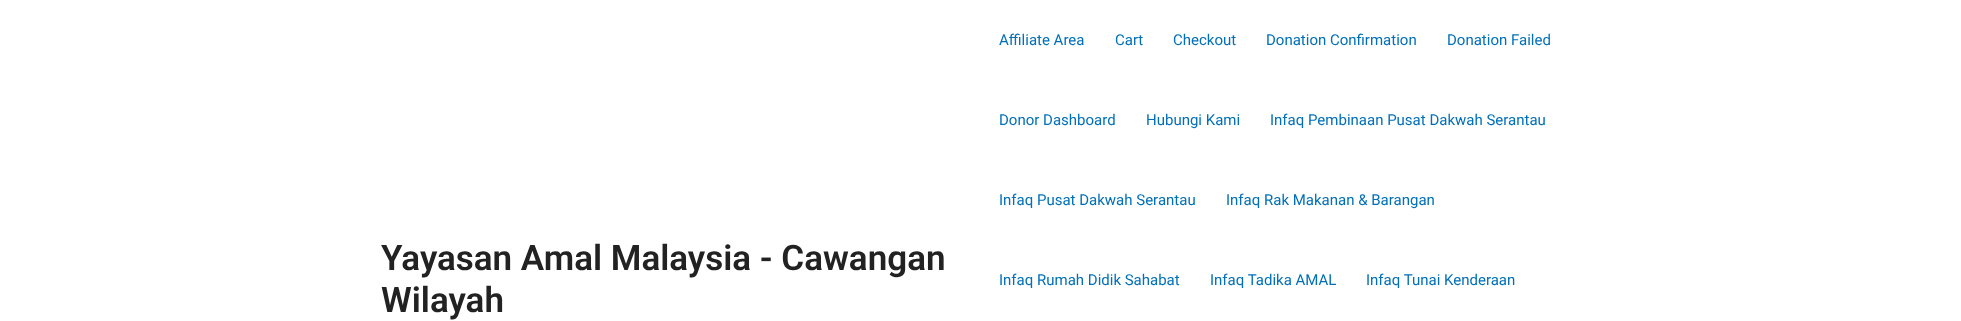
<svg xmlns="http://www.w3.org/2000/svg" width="1961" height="321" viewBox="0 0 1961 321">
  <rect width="100%" height="100%" fill="#ffffff"/>
  <text x="381" y="270" font-family="Roboto" font-size="35" font-weight="600" fill="#222222">Yayasan Amal Malaysia - Cawangan</text>
  <text x="381" y="312" font-family="Roboto" font-size="35" font-weight="600" fill="#222222">Wilayah</text>
  <text x="999" y="45" font-family="Roboto" font-size="15" fill="#0170b9">Affiliate Area</text>
  <text x="1115" y="45" font-family="Roboto" font-size="15" fill="#0170b9">Cart</text>
  <text x="1173" y="45" font-family="Roboto" font-size="15" fill="#0170b9">Checkout</text>
  <text x="1266" y="45" font-family="Roboto" font-size="15" fill="#0170b9">Donation Confirmation</text>
  <text x="1447" y="45" font-family="Roboto" font-size="15" fill="#0170b9">Donation Failed</text>
  <text x="999" y="125" font-family="Roboto" font-size="15" fill="#0170b9">Donor Dashboard</text>
  <text x="1146" y="125" font-family="Roboto" font-size="15" fill="#0170b9">Hubungi Kami</text>
  <text x="1270" y="125" font-family="Roboto" font-size="15" fill="#0170b9">Infaq Pembinaan Pusat Dakwah Serantau</text>
  <text x="999" y="205" font-family="Roboto" font-size="15" fill="#0170b9">Infaq Pusat Dakwah Serantau</text>
  <text x="1226" y="205" font-family="Roboto" font-size="15" fill="#0170b9">Infaq Rak Makanan &amp; Barangan</text>
  <text x="999" y="285" font-family="Roboto" font-size="15" fill="#0170b9">Infaq Rumah Didik Sahabat</text>
  <text x="1210" y="285" font-family="Roboto" font-size="15" fill="#0170b9">Infaq Tadika AMAL</text>
  <text x="1366" y="285" font-family="Roboto" font-size="15" fill="#0170b9">Infaq Tunai Kenderaan</text>
</svg>
